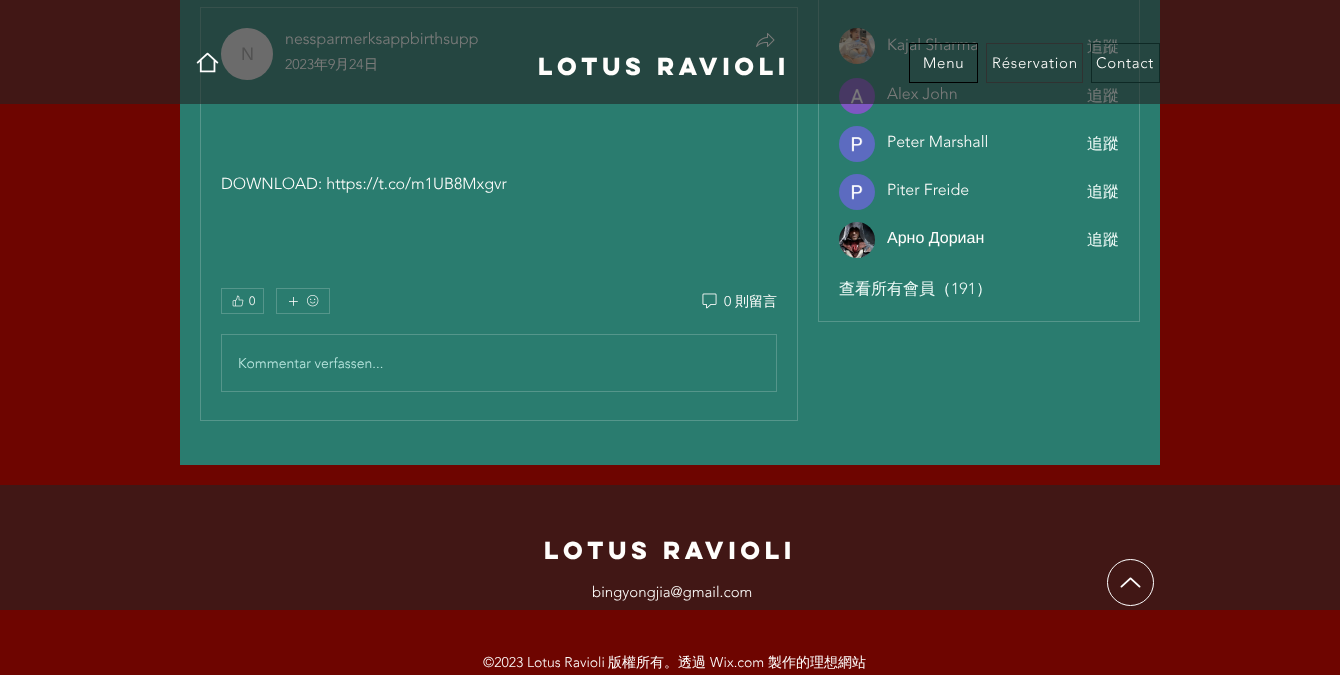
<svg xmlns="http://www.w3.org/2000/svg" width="1340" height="675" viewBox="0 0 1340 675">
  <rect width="100%" height="100%" fill="#6e0500"/>
  <rect x="180" y="0" width="980" height="465" fill="#2a7c6f"/>
  <rect x="200.5" y="7.5" width="597" height="413" fill="none" stroke="#55968b"/>
  <text x="285" y="44" font-family="'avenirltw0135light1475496'" font-size="16" font-weight="300" fill="#fffefc">nessparmerksappbirthsupp</text>
  <text x="285" y="69" font-family="'avenirltw0135light1475496'" font-size="14" font-weight="300" fill="#fffefc">2023</text>
  <text x="314" y="69" font-family="WenQuanYi Zen Hei" font-size="14" font-weight="500" fill="#fffefc">年</text>
  <text x="328" y="69" font-family="'avenirltw0135light1475496'" font-size="14" font-weight="300" fill="#fffefc">9</text>
  <text x="335" y="69" font-family="WenQuanYi Zen Hei" font-size="14" font-weight="500" fill="#fffefc">月</text>
  <text x="349" y="69" font-family="'avenirltw0135light1475496'" font-size="14" font-weight="300" fill="#fffefc">24</text>
  <text x="364" y="69" font-family="WenQuanYi Zen Hei" font-size="14" font-weight="500" fill="#fffefc">日</text>
  <image x="756" y="33" width="19" height="14" href="img1.png"/>
  <circle cx="247" cy="54" r="26" fill="#d8d8d8"/>
  <text x="241" y="60" font-family="Liberation Sans" font-size="18" fill="#979797">N</text>
  <text x="221" y="189" font-family="'avenirltw0135light1475496'" font-size="16" font-weight="300" fill="#fffefc">DOWNLOAD: https://t.co/m1UB8Mxgvr</text>
  <rect x="221.5" y="288.5" width="42" height="25" fill="none" stroke="#55968b"/>
  <image x="232" y="295" width="12" height="12" href="img2.png"/>
  <text x="249" y="305" font-family="'avenirltw0135light1475496'" font-size="12" font-weight="300" fill="#fffefc">0</text>
  <rect x="276.5" y="288.5" width="53" height="25" fill="none" stroke="#55968b"/>
  <image x="289" y="297" width="9" height="9" href="img3.png"/>
  <image x="307" y="295" width="12" height="12" href="img4.png"/>
  <image x="702" y="293" width="15" height="16" href="img5.png"/>
  <text x="724" y="306" font-family="'avenirltw0135light1475496'" font-size="14" font-weight="300" fill="#fffefc">0</text>
  <text x="735" y="306" font-family="WenQuanYi Zen Hei" font-size="14" font-weight="500" fill="#fffefc">則留言</text>
  <rect x="221.5" y="334.5" width="555" height="57" fill="none" stroke="#55968b"/>
  <text x="238" y="368" font-family="'avenirltw0135light1475496'" font-size="14" font-weight="300" fill="#bde9e2">Kommentar verfassen...</text>
  <rect x="818.5" y="-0.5" width="321" height="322" fill="none" stroke="#55968b"/>
  <image x="839" y="28" width="36" height="36" href="img6.png"/>
  <text x="887" y="50" font-family="'avenirltw0135light1475496'" font-size="16" font-weight="300" fill="#fffefc">Kajal Sharma</text>
  <text x="1087" y="52" font-family="WenQuanYi Zen Hei" font-size="16" font-weight="500" fill="#eefaf7">追蹤</text>
  <image x="839" y="78" width="36" height="36" href="img7.png"/>
  <text x="887" y="99" font-family="'avenirltw0135light1475496'" font-size="16" font-weight="300" fill="#fffefc">Alex John</text>
  <text x="1087" y="101" font-family="WenQuanYi Zen Hei" font-size="16" font-weight="500" fill="#eefaf7">追蹤</text>
  <image x="839" y="126" width="36" height="36" href="img8.png"/>
  <text x="887" y="147" font-family="'avenirltw0135light1475496'" font-size="16" font-weight="300" fill="#fffefc">Peter Marshall</text>
  <text x="1087" y="149" font-family="WenQuanYi Zen Hei" font-size="16" font-weight="500" fill="#eefaf7">追蹤</text>
  <image x="839" y="174" width="36" height="36" href="img8.png"/>
  <text x="887" y="195" font-family="'avenirltw0135light1475496'" font-size="16" font-weight="300" fill="#fffefc">Piter Freide</text>
  <text x="1087" y="197" font-family="WenQuanYi Zen Hei" font-size="16" font-weight="500" fill="#eefaf7">追蹤</text>
  <image x="839" y="222" width="36" height="36" href="img9.png"/>
  <text x="887" y="243" font-family="Liberation Sans" font-size="16" fill="#fffefc">Арно Дориан</text>
  <text x="1087" y="245" font-family="WenQuanYi Zen Hei" font-size="16" font-weight="500" fill="#eefaf7">追蹤</text>
  <text x="839" y="294" font-family="WenQuanYi Zen Hei" font-size="16" font-weight="500" fill="#eefaf7">查看所有會員（</text>
  <text x="951" y="294" font-family="'avenirltw0135light1475496'" font-size="16" font-weight="300" fill="#eefaf7">191</text>
  <text x="976" y="294" font-family="WenQuanYi Zen Hei" font-size="16" font-weight="500" fill="#eefaf7">）</text>
  <rect x="0" y="0" width="1340" height="104" fill="#232323" fill-opacity="0.6"/>
  <image x="196" y="52" width="23" height="21" href="img10.png"/>
  <text x="538" y="75" font-family="'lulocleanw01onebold'" font-size="22" font-weight="bold" fill="#fffefc">LOTUS RAVIOLI</text>
  <rect x="909.5" y="43.5" width="68" height="39" fill="none" stroke="#000000"/>
  <text x="923" y="68" font-family="'avenirltw0135light1475496'" font-size="15" font-weight="300" letter-spacing="0.75" fill="#fffefc">Menu</text>
  <rect x="986.5" y="43.5" width="96" height="39" fill="none" stroke="#303231"/>
  <text x="992" y="68" font-family="'avenirltw0135light1475496'" font-size="15" font-weight="300" letter-spacing="0.75" fill="#fffefc">Réservation</text>
  <rect x="1091.5" y="43.5" width="68" height="39" fill="none" stroke="#0e2925"/>
  <text x="1096" y="68" font-family="'avenirltw0135light1475496'" font-size="15" font-weight="300" letter-spacing="0.75" fill="#fffefc">Contact</text>
  <rect x="0" y="485" width="1340" height="125" fill="#411715"/>
  <text x="544" y="559" font-family="'lulocleanw01onebold'" font-size="22" font-weight="bold" fill="#fffefc">Lotus Ravioli</text>
  <text x="592" y="597" font-family="'avenirltw0135light1475496'" font-size="15" font-weight="300" fill="#fffefc">bingyongjia@gmail.com</text>
  <circle cx="1130.5" cy="582.5" r="23" fill="none" stroke="#ffffff"/>
  <image x="1120" y="577" width="21" height="11" href="img11.png"/>
  <text x="483" y="667" font-family="'avenirltw0135light1475496'" font-size="14" font-weight="300" fill="#fffefc">©2023 Lotus Ravioli</text>
  <text x="608" y="667" font-family="WenQuanYi Zen Hei" font-size="14" font-weight="500" fill="#fffefc">版權所有。透過</text>
  <text x="710" y="667" font-family="'avenirltw0135light1475496'" font-size="14" font-weight="300" fill="#fffefc">Wix.com</text>
  <text x="768" y="667" font-family="WenQuanYi Zen Hei" font-size="14" font-weight="500" fill="#fffefc">製作的理想網站</text>
</svg>
